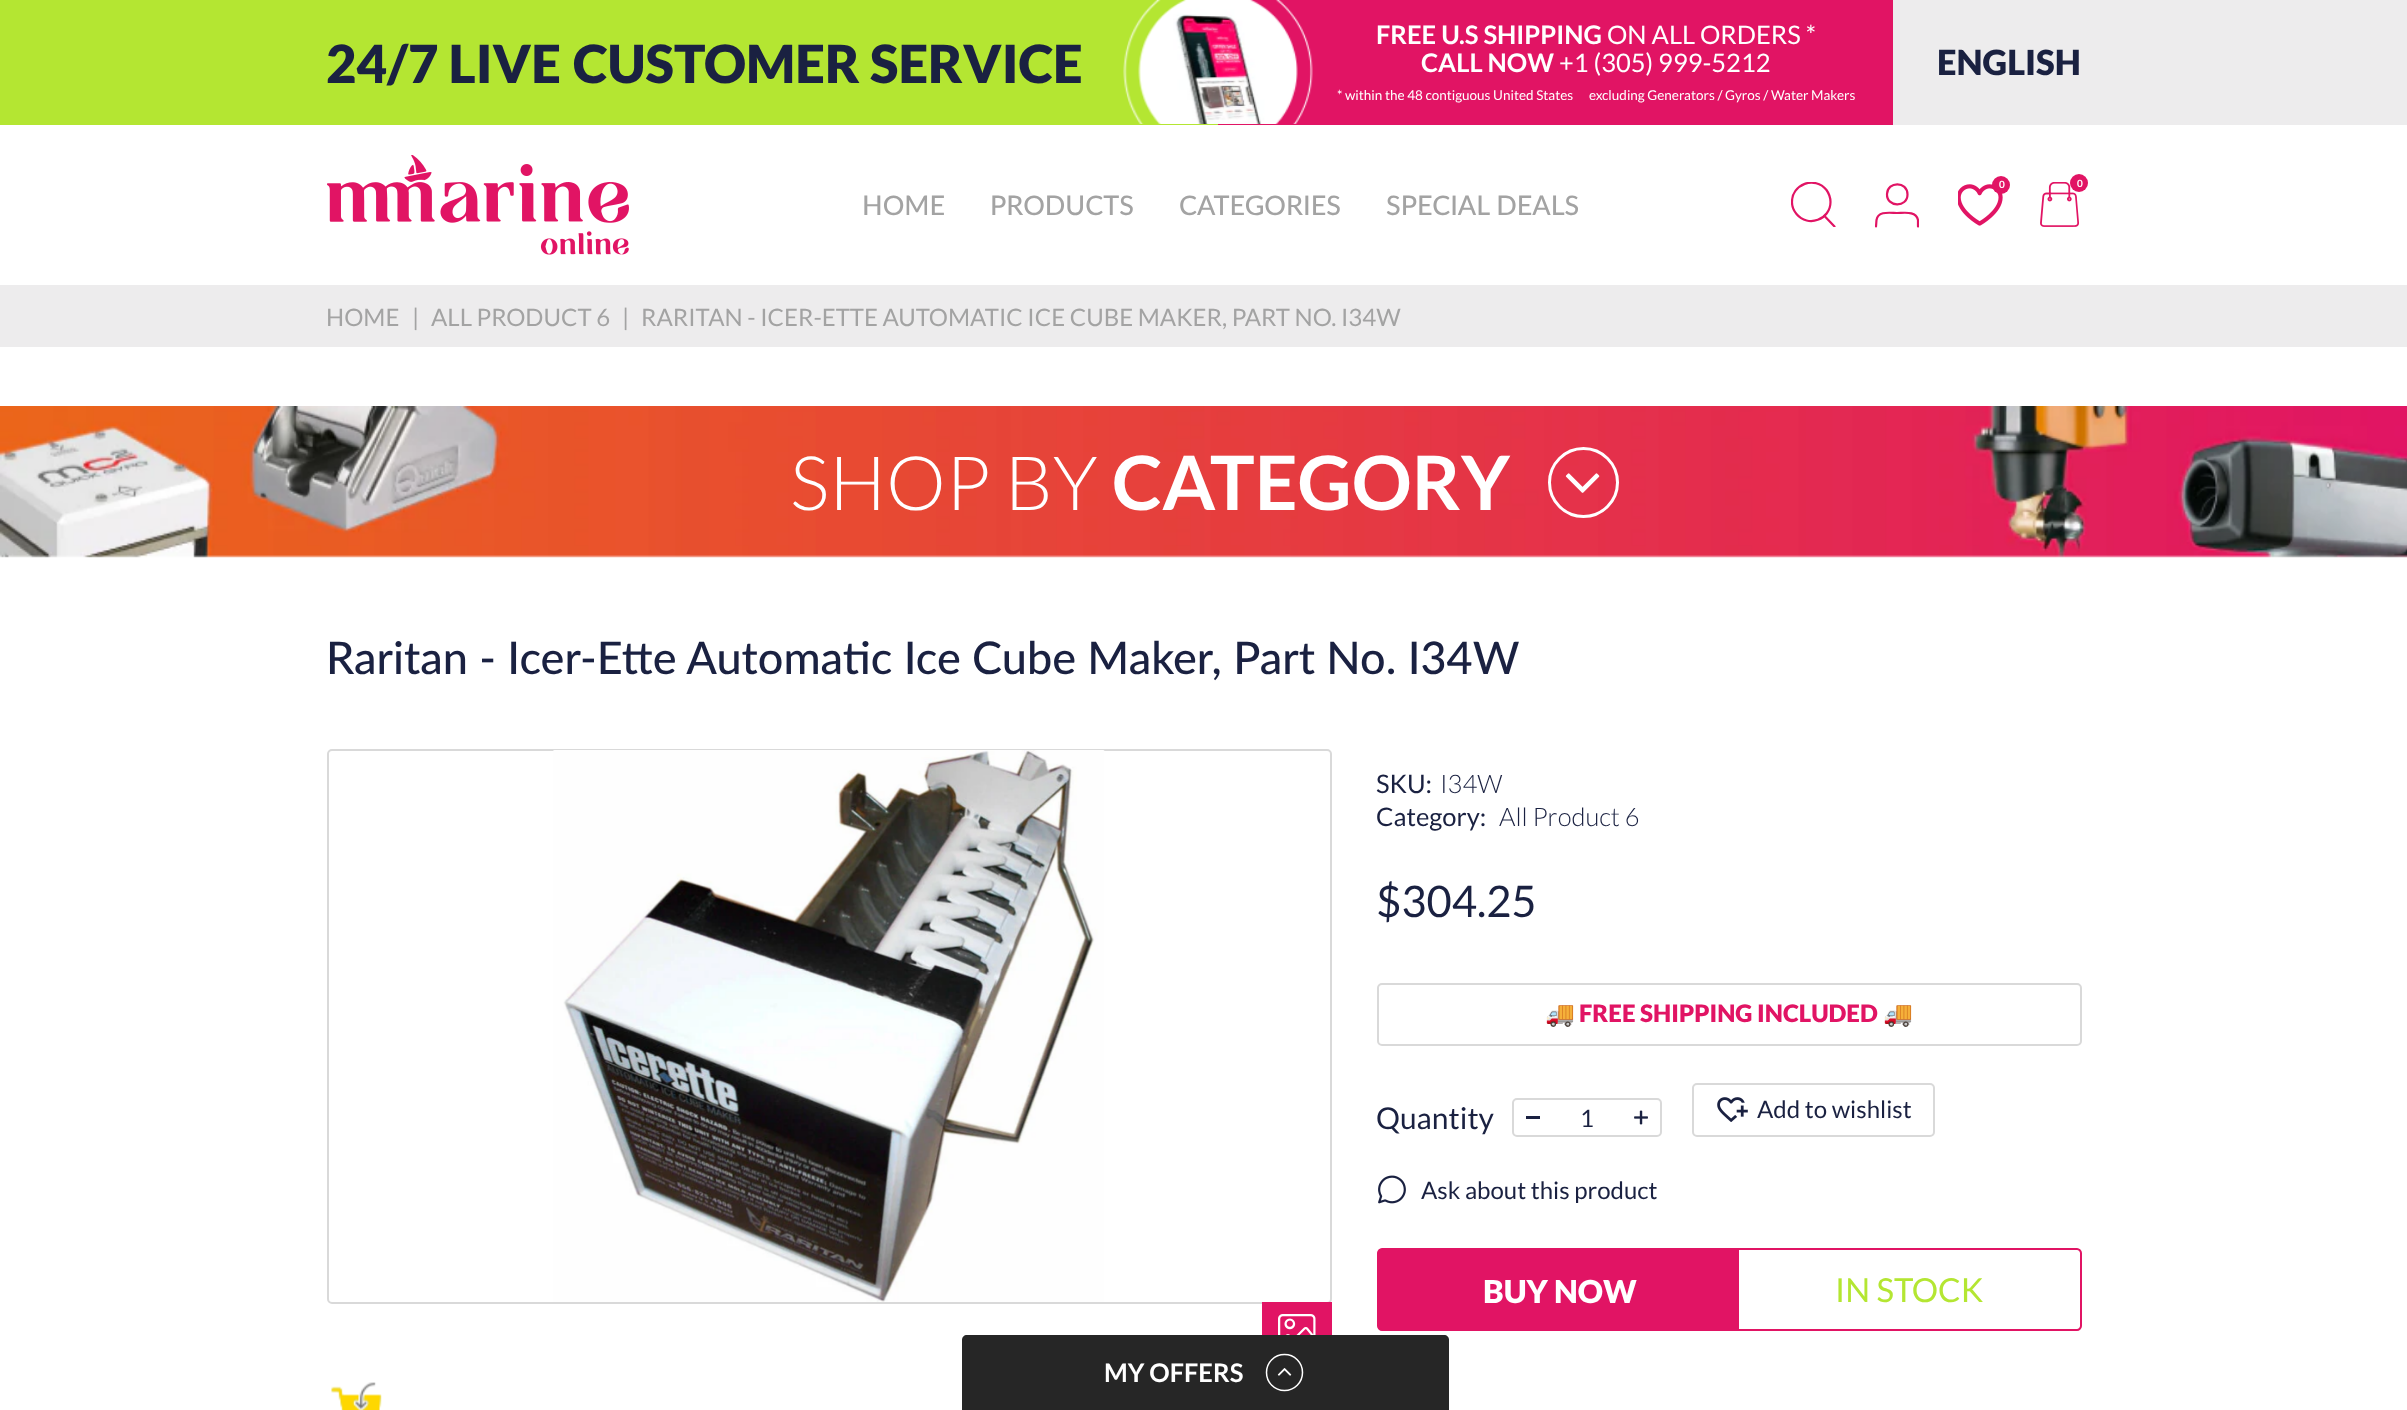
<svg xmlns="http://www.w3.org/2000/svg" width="2407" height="1410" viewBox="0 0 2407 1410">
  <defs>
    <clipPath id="clip1"><rect x="1791" y="182" width="45" height="45"/></clipPath>
    <clipPath id="clip2"><rect x="1875" y="183" width="44" height="45"/></clipPath>
  </defs>
  <rect width="100%" height="100%" fill="#ffffff"/>
  <rect x="0" y="0" width="1218" height="125" fill="#b4e632"/>
  <text x="326" y="83" font-family="Lato" font-size="52.5" font-weight="900" fill="#1a2141">24/7 LIVE</text>
  <text x="573" y="83" font-family="Lato" font-size="52.5" font-weight="900" fill="#1a2141">CUSTOMER SERVICE</text>
  <rect x="1218" y="0" width="675" height="125" fill="#e11464"/>
  <image x="1123" y="0" width="190" height="124" href="img1.png"/>
  <text x="1376" y="44" font-family="Lato" font-size="25.5" font-weight="bold" fill="#ffffff">FREE U.S SHIPPING</text>
  <text x="1607" y="44" font-family="Lato" font-size="25.5" fill="#ffffff">ON ALL ORDERS *</text>
  <text x="1421" y="72" font-family="Lato" font-size="25.5" font-weight="bold" fill="#ffffff">CALL NOW</text>
  <text x="1559" y="72" font-family="Lato" font-size="25.5" fill="#ffffff">+1 (305) 999-5212</text>
  <text x="1337" y="100" font-family="Lato" font-size="13.5" fill="#ffffff">* within the 48 contiguous United States</text>
  <text x="1589" y="100" font-family="Lato" font-size="13.5" fill="#ffffff">excluding Generators / Gyros / Water Makers</text>
  <rect x="1893" y="0" width="514" height="125" fill="#edeced"/>
  <text x="1937" y="75" font-family="Lato" font-size="34.5" font-weight="900" fill="#1a2141">ENGLISH</text>
  <image x="327" y="155" width="302" height="100" href="img2.png"/>
  <g clip-path="url(#clip1)">
    <path d="M1830.5 202C1830.5 197.5 1829 193.5 1826.5 190C1815 175.5 1791.5 184 1792 202.5C1792 206.5 1794 211 1796.5 214C1808 228 1830.5 219.5 1830.5 202Z" fill="none" stroke="#e11464" stroke-width="2.2"/>
    <path d="M1824.5 216L1834.5 226.5" fill="none" stroke="#e11464" stroke-width="2.2" stroke-linecap="round"/>
  </g>
  <path d="M1907.5 194.5C1907.5 208 1886.5 207.5 1887 194C1887.5 181 1907.5 181 1907.5 194.5Z" fill="none" stroke="#e11464" stroke-width="2.2"/>
  <g clip-path="url(#clip2)">
    <path d="M1876 226.5L1876.5 220C1878 210.5 1890.5 213 1897 213C1904 213 1916 210.5 1918 220V226.5" fill="none" stroke="#e11464" stroke-width="2.2" stroke-linecap="round"/>
  </g>
  <image x="1958" y="184" width="45" height="42" href="img3.png"/>
  <circle cx="2001" cy="185" r="9" fill="#e11464"/>
  <text x="1999" y="188" font-family="Lato" font-size="10" font-weight="bold" fill="#ffffff">0</text>
  <image x="2040" y="182" width="39" height="45" href="img4.png"/>
  <circle cx="2079" cy="183" r="9" fill="#e11464"/>
  <text x="2077" y="187" font-family="Lato" font-size="10" font-weight="bold" fill="#ffffff">0</text>
  <text x="862" y="215" font-family="Lato" font-size="27" font-weight="500" fill="#a3a3a3">HOME</text>
  <text x="990" y="215" font-family="Lato" font-size="27" font-weight="500" fill="#a3a3a3">PRODUCTS</text>
  <text x="1179" y="215" font-family="Lato" font-size="27" font-weight="500" fill="#a3a3a3">CATEGORIES</text>
  <text x="1386" y="215" font-family="Lato" font-size="27" font-weight="500" fill="#a3a3a3">SPECIAL DEALS</text>
  <rect x="0" y="285" width="2407" height="62" fill="#edeced"/>
  <text x="326" y="326" font-family="Lato" font-size="24" fill="#a3a3a3">HOME</text>
  <text x="412" y="326" font-family="Lato" font-size="24" fill="#a3a3a3">|</text>
  <text x="431" y="326" font-family="Lato" font-size="24" fill="#a3a3a3">ALL PRODUCT 6</text>
  <text x="622" y="326" font-family="Lato" font-size="24" fill="#a3a3a3">|</text>
  <text x="641" y="326" font-family="Lato" font-size="24" fill="#a3a3a3">RARITAN - ICER-ETTE AUTOMATIC ICE CUBE MAKER, PART NO. I34W</text>
  <image x="0" y="406" width="2407" height="152" href="img5.png"/>
  <text x="790" y="510" font-family="Lato" font-size="75" font-weight="300" fill="#ffffff">SHOP BY</text>
  <text x="1112" y="510" font-family="Lato" font-size="75" font-weight="bold" fill="#ffffff">CATEGORY</text>
  <circle cx="1583.5" cy="482.5" r="34" fill="none" stroke="#ffffff" stroke-width="3"/>
  <image x="1565" y="473" width="35" height="20" href="img6.png"/>
  <text x="326" y="674" font-family="Lato" font-size="45" font-weight="500" fill="#1a2141">Raritan - Icer-Ette Automatic Ice Cube Maker, Part No. I34W</text>
  <rect x="328" y="750" width="1003" height="553" rx="4" fill="none" stroke="#d9d9d9" stroke-width="2"/>
  <image x="553" y="750" width="552" height="552" href="img7.png"/>
  <rect x="1264" y="1304" width="66" height="31" fill="#e11464"/>
  <rect x="1263" y="1303" width="68" height="60" fill="none" stroke="#e11464" stroke-width="2"/>
  <image x="1278" y="1314" width="38" height="21" href="img8.png"/>
  <image x="331" y="1382" width="51" height="28" href="img9.png"/>
  <text x="1376" y="793" font-family="Lato" font-size="25.5" fill="#1a2141">SKU:</text>
  <text x="1440" y="793" font-family="Lato" font-size="25.5" font-weight="300" fill="#1a2141">I34W</text>
  <text x="1376" y="826" font-family="Lato" font-size="25.5" fill="#1a2141">Category:</text>
  <text x="1499" y="826" font-family="Lato" font-size="25.5" font-weight="300" fill="#1a2141">All Product 6</text>
  <text x="1376" y="917" font-family="Lato" font-size="43.5" fill="#1a2141">$304.25</text>
  <rect x="1378" y="984" width="703" height="61" rx="4" fill="none" stroke="#d9d9d9" stroke-width="2"/>
  <text x="1545" y="1022" font-family="Noto Color Emoji" font-size="24" font-weight="bold" fill="#e11464">🚚</text>
  <text x="1579" y="1022" font-family="Lato" font-size="24" font-weight="900" fill="#e11464">FREE SHIPPING INCLUDED</text>
  <text x="1883" y="1022" font-family="Noto Color Emoji" font-size="24" font-weight="bold" fill="#e11464">🚚</text>
  <text x="1376" y="1129" font-family="Lato" font-size="30" fill="#1a2141">Quantity</text>
  <rect x="1513" y="1099" width="148" height="37" rx="4" fill="none" stroke="#d9d9d9" stroke-width="2"/>
  <rect x="1526" y="1116" width="14" height="3" fill="#1a2141"/>
  <text x="1580" y="1127" font-family="Lato" font-size="24" fill="#1a2141">1</text>
  <image x="1634" y="1110" width="14" height="15" href="img10.png"/>
  <rect x="1693" y="1084" width="241" height="52" rx="4" fill="none" stroke="#d9d9d9" stroke-width="2"/>
  <image x="1717" y="1097" width="31" height="25" href="img11.png"/>
  <text x="1757" y="1118" font-family="Lato" font-size="24" fill="#1a2141">Add to wishlist</text>
  <image x="1378" y="1175" width="28" height="29" href="img12.png"/>
  <text x="1421" y="1199" font-family="Lato" font-size="24" fill="#1a2141">Ask about this product</text>
  <path d="M1382 1249H1736V1330H1382C1380 1330 1378 1328 1378 1326V1253C1378 1251 1380 1249 1382 1249Z" fill="#e11464" stroke="#e11464" stroke-width="2"/>
  <text x="1483" y="1303" font-family="Lato" font-size="31.5" font-weight="900" fill="#ffffff">BUY NOW</text>
  <path d="M1738 1249H2077C2079 1249 2081 1251 2081 1253V1326C2081 1328 2079 1330 2077 1330H1738Z" fill="none" stroke="#e11464" stroke-width="2"/>
  <text x="1835" y="1302" font-family="Lato" font-size="33" fill="#b4e632">IN STOCK</text>
  <path d="M967 1335H1444C1447 1335 1449 1337 1449 1340V1410H962V1340C962 1337 964 1335 967 1335Z" fill="#262626"/>
  <text x="1104" y="1382" font-family="Lato" font-size="25.5" font-weight="bold" fill="#ffffff">MY OFFERS</text>
  <path d="M1284.5 1390.5C1274.5 1390.5 1266.5 1382.5 1266.5 1372.5C1266.5 1362.5 1274.5 1354.5 1284.5 1354.5C1294.5 1354.5 1302.5 1362.5 1302.5 1372.5C1302.5 1382.5 1294.5 1390.5 1284.5 1390.5Z" fill="none" stroke="#ffffff" stroke-width="1.5"/>
  <image x="1277" y="1368" width="15" height="8" href="img13.png"/>
</svg>
